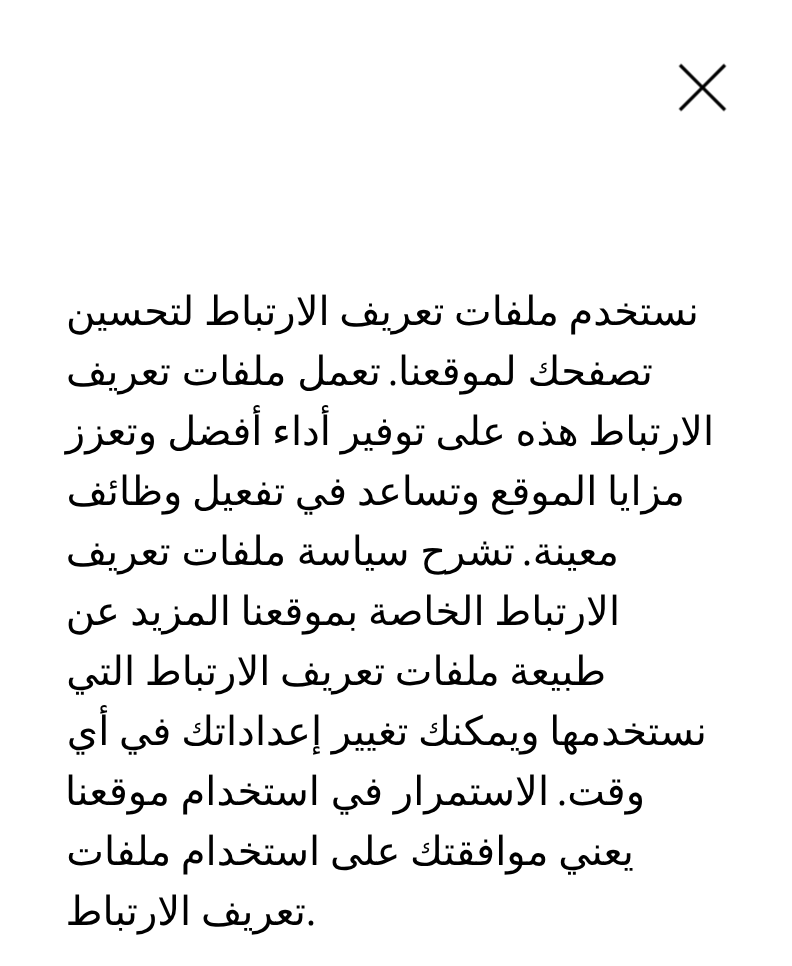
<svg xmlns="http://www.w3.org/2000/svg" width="792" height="966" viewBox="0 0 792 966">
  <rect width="100%" height="100%" fill="#ffffff"/>
  <image x="678" y="63" width="49" height="49" href="img1.png"/>
  <text x="699" y="325" word-spacing="-3" font-family="DejaVu Sans" font-size="40" direction="rtl" fill="#000000">نستخدم ملفات تعريف الارتباط لتحسين</text>
  <text x="653" y="385" word-spacing="-2" font-family="DejaVu Sans" font-size="40" direction="rtl" fill="#000000">تصفحك لموقعنا</text>
  <text x="398" y="385" font-family="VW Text" font-size="40" direction="rtl" fill="#000000">.</text>
  <text x="381" y="385" word-spacing="-2" font-family="DejaVu Sans" font-size="40" direction="rtl" fill="#000000">تعمل ملفات تعريف</text>
  <text x="714" y="445" word-spacing="-3" font-family="DejaVu Sans" font-size="40" direction="rtl" fill="#000000">الارتباط هذه على توفير أداء أفضل</text>
  <text x="157" y="445" font-family="DejaVu Sans" font-size="40" direction="rtl" fill="#000000">وتعزز</text>
  <text x="685" y="505" word-spacing="-3" font-family="DejaVu Sans" font-size="40" direction="rtl" fill="#000000">مزايا الموقع وتساعد في تفعيل وظائف</text>
  <text x="619" y="565" font-family="DejaVu Sans" font-size="40" direction="rtl" fill="#000000">معينة</text>
  <text x="532" y="565" font-family="VW Text" font-size="40" direction="rtl" fill="#000000">.</text>
  <text x="515" y="565" word-spacing="-2" font-family="DejaVu Sans" font-size="40" direction="rtl" fill="#000000">تشرح سياسة ملفات تعريف</text>
  <text x="620" y="625" word-spacing="-3" font-family="DejaVu Sans" font-size="40" direction="rtl" fill="#000000">الارتباط الخاصة بموقعنا المزيد</text>
  <text x="120" y="625" font-family="DejaVu Sans" font-size="40" direction="rtl" fill="#000000">عن</text>
  <text x="606" y="685" word-spacing="-3" font-family="DejaVu Sans" font-size="40" direction="rtl" fill="#000000">طبيعة ملفات تعريف الارتباط التي</text>
  <text x="707" y="745" word-spacing="-3" font-family="DejaVu Sans" font-size="40" direction="rtl" fill="#000000">نستخدمها ويمكنك تغيير إعداداتك في أي</text>
  <text x="645" y="805" font-family="DejaVu Sans" font-size="40" direction="rtl" fill="#000000">وقت</text>
  <text x="567" y="805" font-family="VW Text" font-size="40" direction="rtl" fill="#000000">.</text>
  <text x="549" y="805" word-spacing="-2" font-family="DejaVu Sans" font-size="40" direction="rtl" fill="#000000">الاستمرار في استخدام موقعنا</text>
  <text x="634" y="865" word-spacing="-3" font-family="DejaVu Sans" font-size="40" direction="rtl" fill="#000000">يعني موافقتك على استخدام ملفات</text>
  <text x="306" y="925" font-family="VW Text" font-size="40" fill="#000000">.</text>
  <text x="306" y="925" word-spacing="-3" font-family="DejaVu Sans" font-size="40" direction="rtl" fill="#000000">تعريف الارتباط</text>
</svg>
